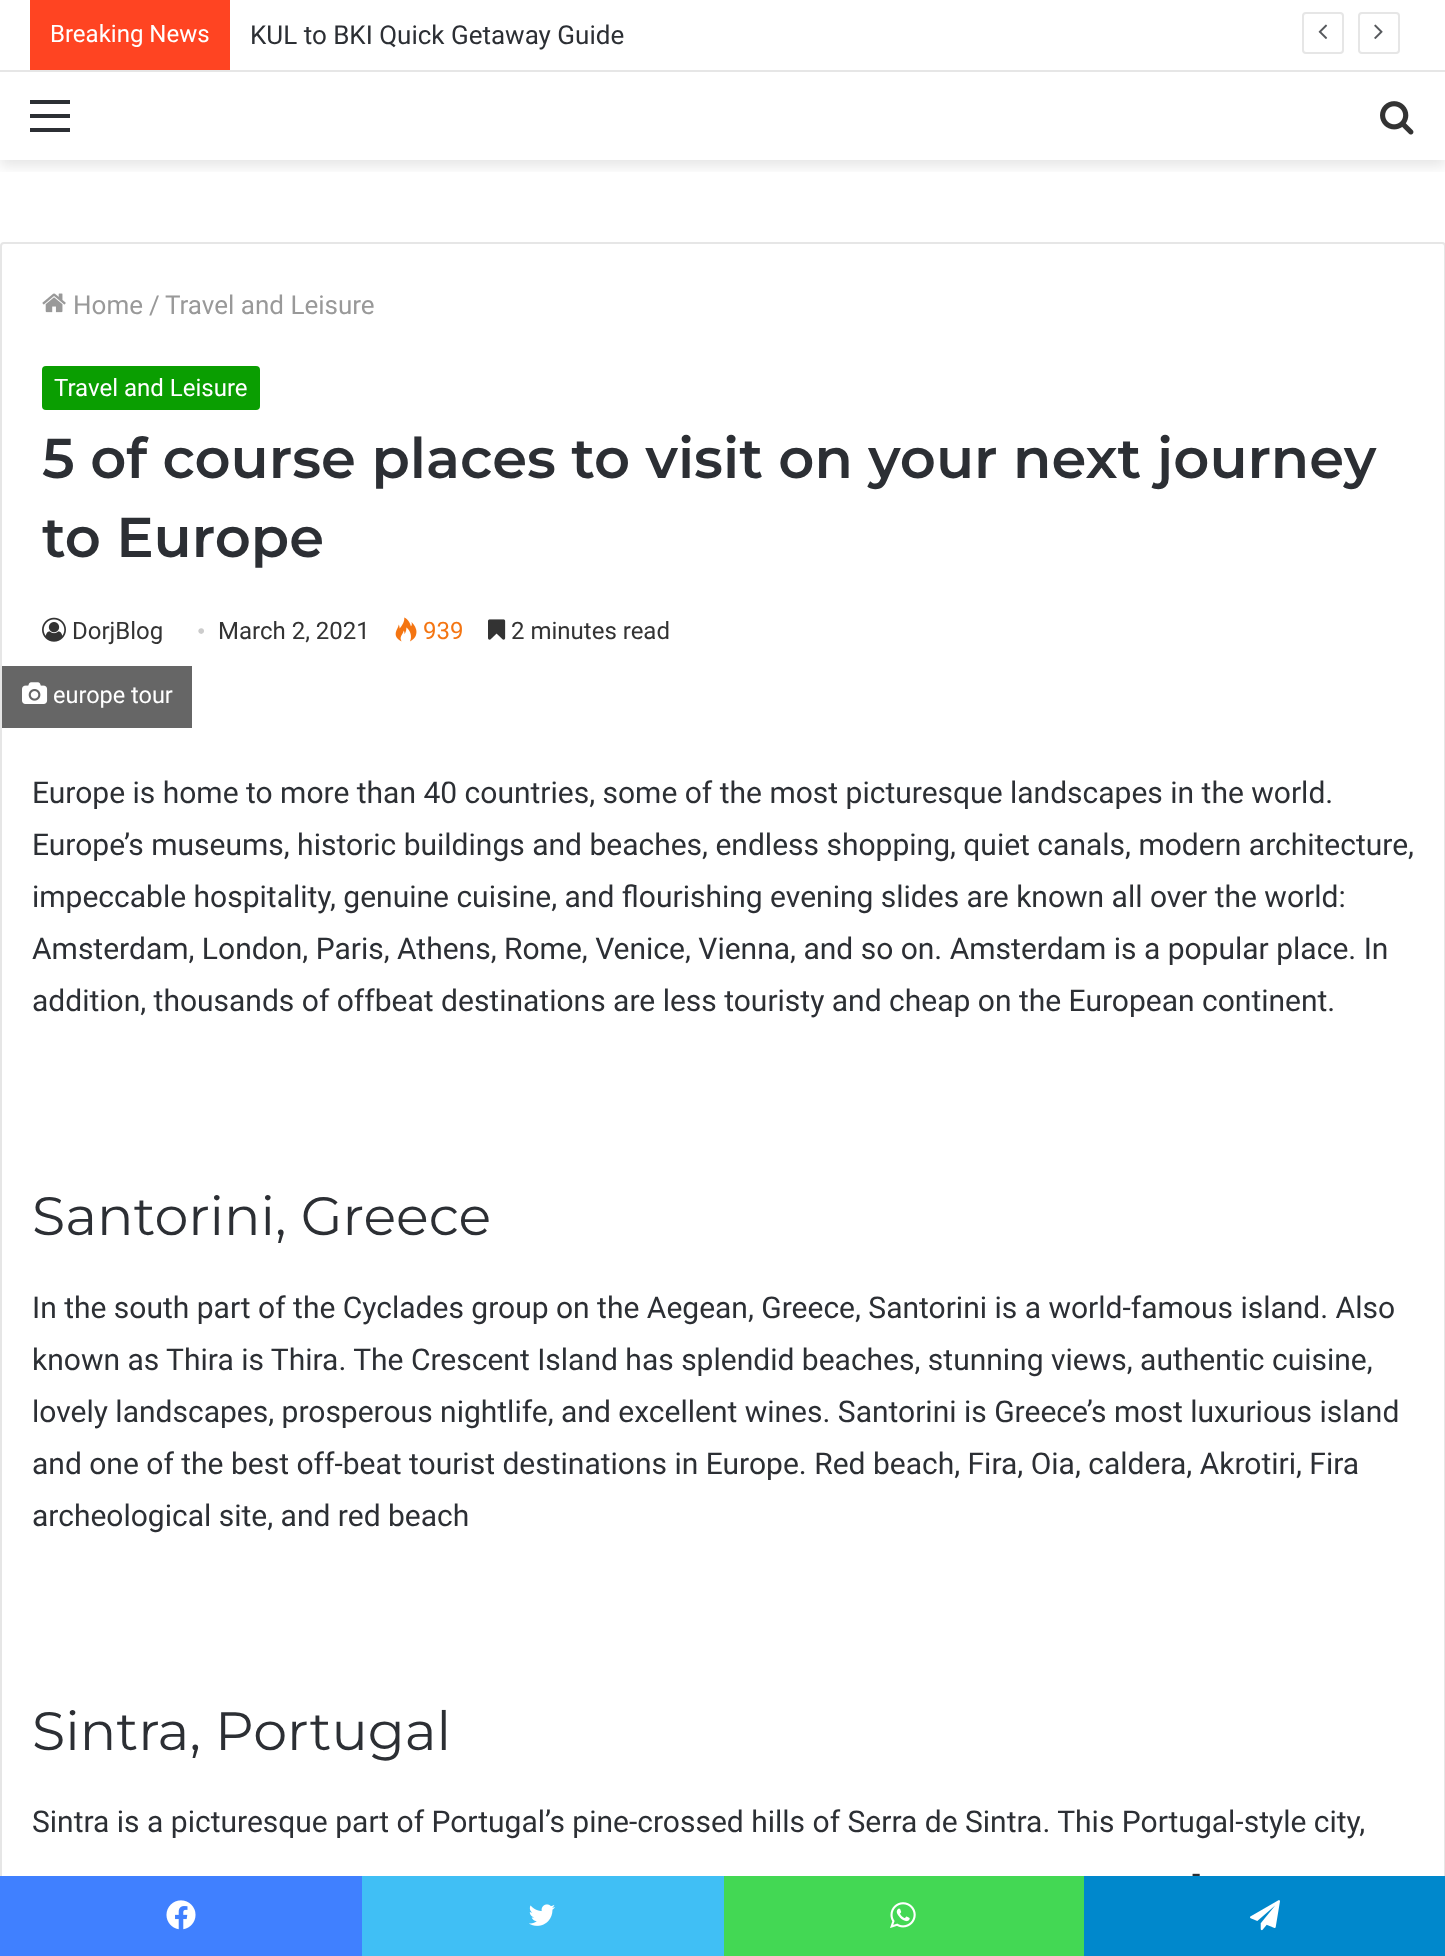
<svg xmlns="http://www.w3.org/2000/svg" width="1445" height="1956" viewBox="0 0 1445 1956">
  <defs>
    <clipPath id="clip1"><rect x="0" y="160" width="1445" height="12"/></clipPath>
    <filter id="blur1" x="-50%" y="-200%" width="200%" height="500%"><feGaussianBlur stdDeviation="7"/></filter>
  </defs>
  <rect width="100%" height="100%" fill="#ffffff"/>
  <g clip-path="url(#clip1)">
    <rect x="0" y="78" width="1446" height="88" fill="#000000" fill-opacity="0.1" filter="url(#blur1)"/>
  </g>
  <rect x="9" y="69" width="1428" height="1" fill="#ffffff"/>
  <rect x="0" y="70" width="1445" height="2" fill="#e6e6e6"/>
  <rect x="30" y="0" width="200" height="70" fill="#ff4422"/>
  <text x="50" y="42" font-family="Roboto" font-size="24" fill="#ffffff">Breaking News</text>
  <text x="250" y="44" font-family="Roboto" font-size="26" fill="#2c2f34">KUL to BKI Quick Getaway Guide</text>
  <rect x="1303" y="13" width="40" height="40" rx="3" fill="none" stroke="#e6e6e6" stroke-width="2"/>
  <image x="1318" y="24" width="10" height="15" href="img1.png"/>
  <rect x="1359" y="13" width="40" height="40" rx="3" fill="none" stroke="#e6e6e6" stroke-width="2"/>
  <image x="1374" y="24" width="9" height="15" href="img2.png"/>
  <rect x="30" y="114" width="40" height="4" fill="#2c2f34"/>
  <rect x="30" y="100" width="40" height="4" fill="#2c2f34"/>
  <rect x="30" y="128" width="40" height="4" fill="#2c2f34"/>
  <image x="1380" y="101" width="34" height="34" href="img3.png"/>
  <rect x="1" y="243" width="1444" height="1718" rx="3" fill="none" stroke="#e6e6e6" stroke-width="2"/>
  <image x="42" y="293" width="24" height="20" href="img4.png"/>
  <text x="73" y="314" font-family="Roboto" font-size="26" fill="#999999">Home</text>
  <text x="149" y="314" font-family="Roboto" font-size="26" fill="#999999">/</text>
  <text x="165" y="314" font-family="Roboto" font-size="26" fill="#999999">Travel and Leisure</text>
  <rect x="42" y="366" width="218" height="44" rx="4" fill="#0a9e01"/>
  <text x="54" y="396" font-family="Roboto" font-size="24" fill="#ffffff">Travel and Leisure</text>
  <text x="42" y="478" font-family="Montserrat" font-size="56" font-weight="600" fill="#2c2f34">5 of course places to visit on your next journey</text>
  <text x="42" y="557" font-family="Montserrat" font-size="56" font-weight="600" fill="#2c2f34">to Europe</text>
  <image x="42" y="617" width="24" height="25" href="img5.png"/>
  <text x="72" y="639" font-family="Roboto" font-size="24" fill="#333333">DorjBlog</text>
  <text x="197" y="639" font-family="Liberation Serif" font-size="24" fill="#cccccc">•</text>
  <text x="218" y="639" font-family="Roboto" font-size="24" fill="#333333">March 2, 2021</text>
  <image x="395" y="617" width="22" height="25" href="img6.png"/>
  <text x="423" y="639" font-family="Roboto" font-size="24" fill="#f47512">939</text>
  <image x="488" y="619" width="18" height="21" href="img7.png"/>
  <text x="511" y="639" font-family="Roboto" font-size="24" fill="#333333">2 minutes read</text>
  <rect x="2" y="666" width="190" height="62" fill="#666666"/>
  <image x="22" y="682" width="26" height="22" href="img8.png"/>
  <text x="53" y="703" font-family="Roboto" font-size="23.5" fill="#ffffff">europe tour</text>
  <text x="32" y="803" font-family="Roboto" font-size="30" fill="#2c2f34">Europe is home to more than 40 countries, some of the most picturesque landscapes in the world.</text>
  <text x="32" y="855" font-family="Roboto" font-size="30" fill="#2c2f34">Europe’s museums, historic buildings and beaches, endless shopping, quiet canals, modern architecture,</text>
  <text x="32" y="907" font-family="Roboto" font-size="30" fill="#2c2f34">impeccable hospitality, genuine cuisine, and flourishing evening slides are known all over the world:</text>
  <text x="32" y="959" font-family="Roboto" font-size="30" fill="#2c2f34">Amsterdam, London, Paris, Athens, Rome, Venice, Vienna, and so on. Amsterdam is a popular place. In</text>
  <text x="32" y="1011" font-family="Roboto" font-size="30" fill="#2c2f34">addition, thousands of offbeat destinations are less touristy and cheap on the European continent.</text>
  <text x="32" y="1235" font-family="Montserrat" font-size="54" fill="#2c2f34">Santorini, Greece</text>
  <text x="32" y="1318" font-family="Roboto" font-size="30" fill="#2c2f34">In the south part of the Cyclades group on the Aegean, Greece, Santorini is a world-famous island. Also</text>
  <text x="32" y="1370" font-family="Roboto" font-size="30" fill="#2c2f34">known as Thira is Thira. The Crescent Island has splendid beaches, stunning views, authentic cuisine,</text>
  <text x="32" y="1422" font-family="Roboto" font-size="30" fill="#2c2f34">lovely landscapes, prosperous nightlife, and excellent wines. Santorini is Greece’s most luxurious island</text>
  <text x="32" y="1474" font-family="Roboto" font-size="30" fill="#2c2f34">and one of the best off-beat tourist destinations in Europe. Red beach, Fira, Oia, caldera, Akrotiri, Fira</text>
  <text x="32" y="1526" font-family="Roboto" font-size="30" fill="#2c2f34">archeological site, and red beach</text>
  <text x="32" y="1750" font-family="Montserrat" font-size="54" fill="#2c2f34">Sintra, Portugal</text>
  <text x="32" y="1832" font-family="Roboto" font-size="30" fill="#2c2f34">Sintra is a picturesque part of Portugal’s pine-crossed hills of Serra de Sintra. This Portugal-style city,</text>
  <text x="1192" y="1884" font-family="Roboto" font-size="30" fill="#2c2f34">-</text>
  <rect x="0" y="1876" width="362" height="80" fill="#4080ff"/>
  <image x="166" y="1900" width="30" height="30" href="img9.png"/>
  <rect x="362" y="1876" width="362" height="80" fill="#40bff5"/>
  <image x="529" y="1904" width="26" height="22" href="img10.png"/>
  <rect x="724" y="1876" width="360" height="80" fill="#43d854"/>
  <image x="890" y="1902" width="26" height="26" href="img11.png"/>
  <rect x="1084" y="1876" width="361" height="80" fill="#0088cc"/>
  <image x="1250" y="1900" width="30" height="31" href="img12.png"/>
</svg>
